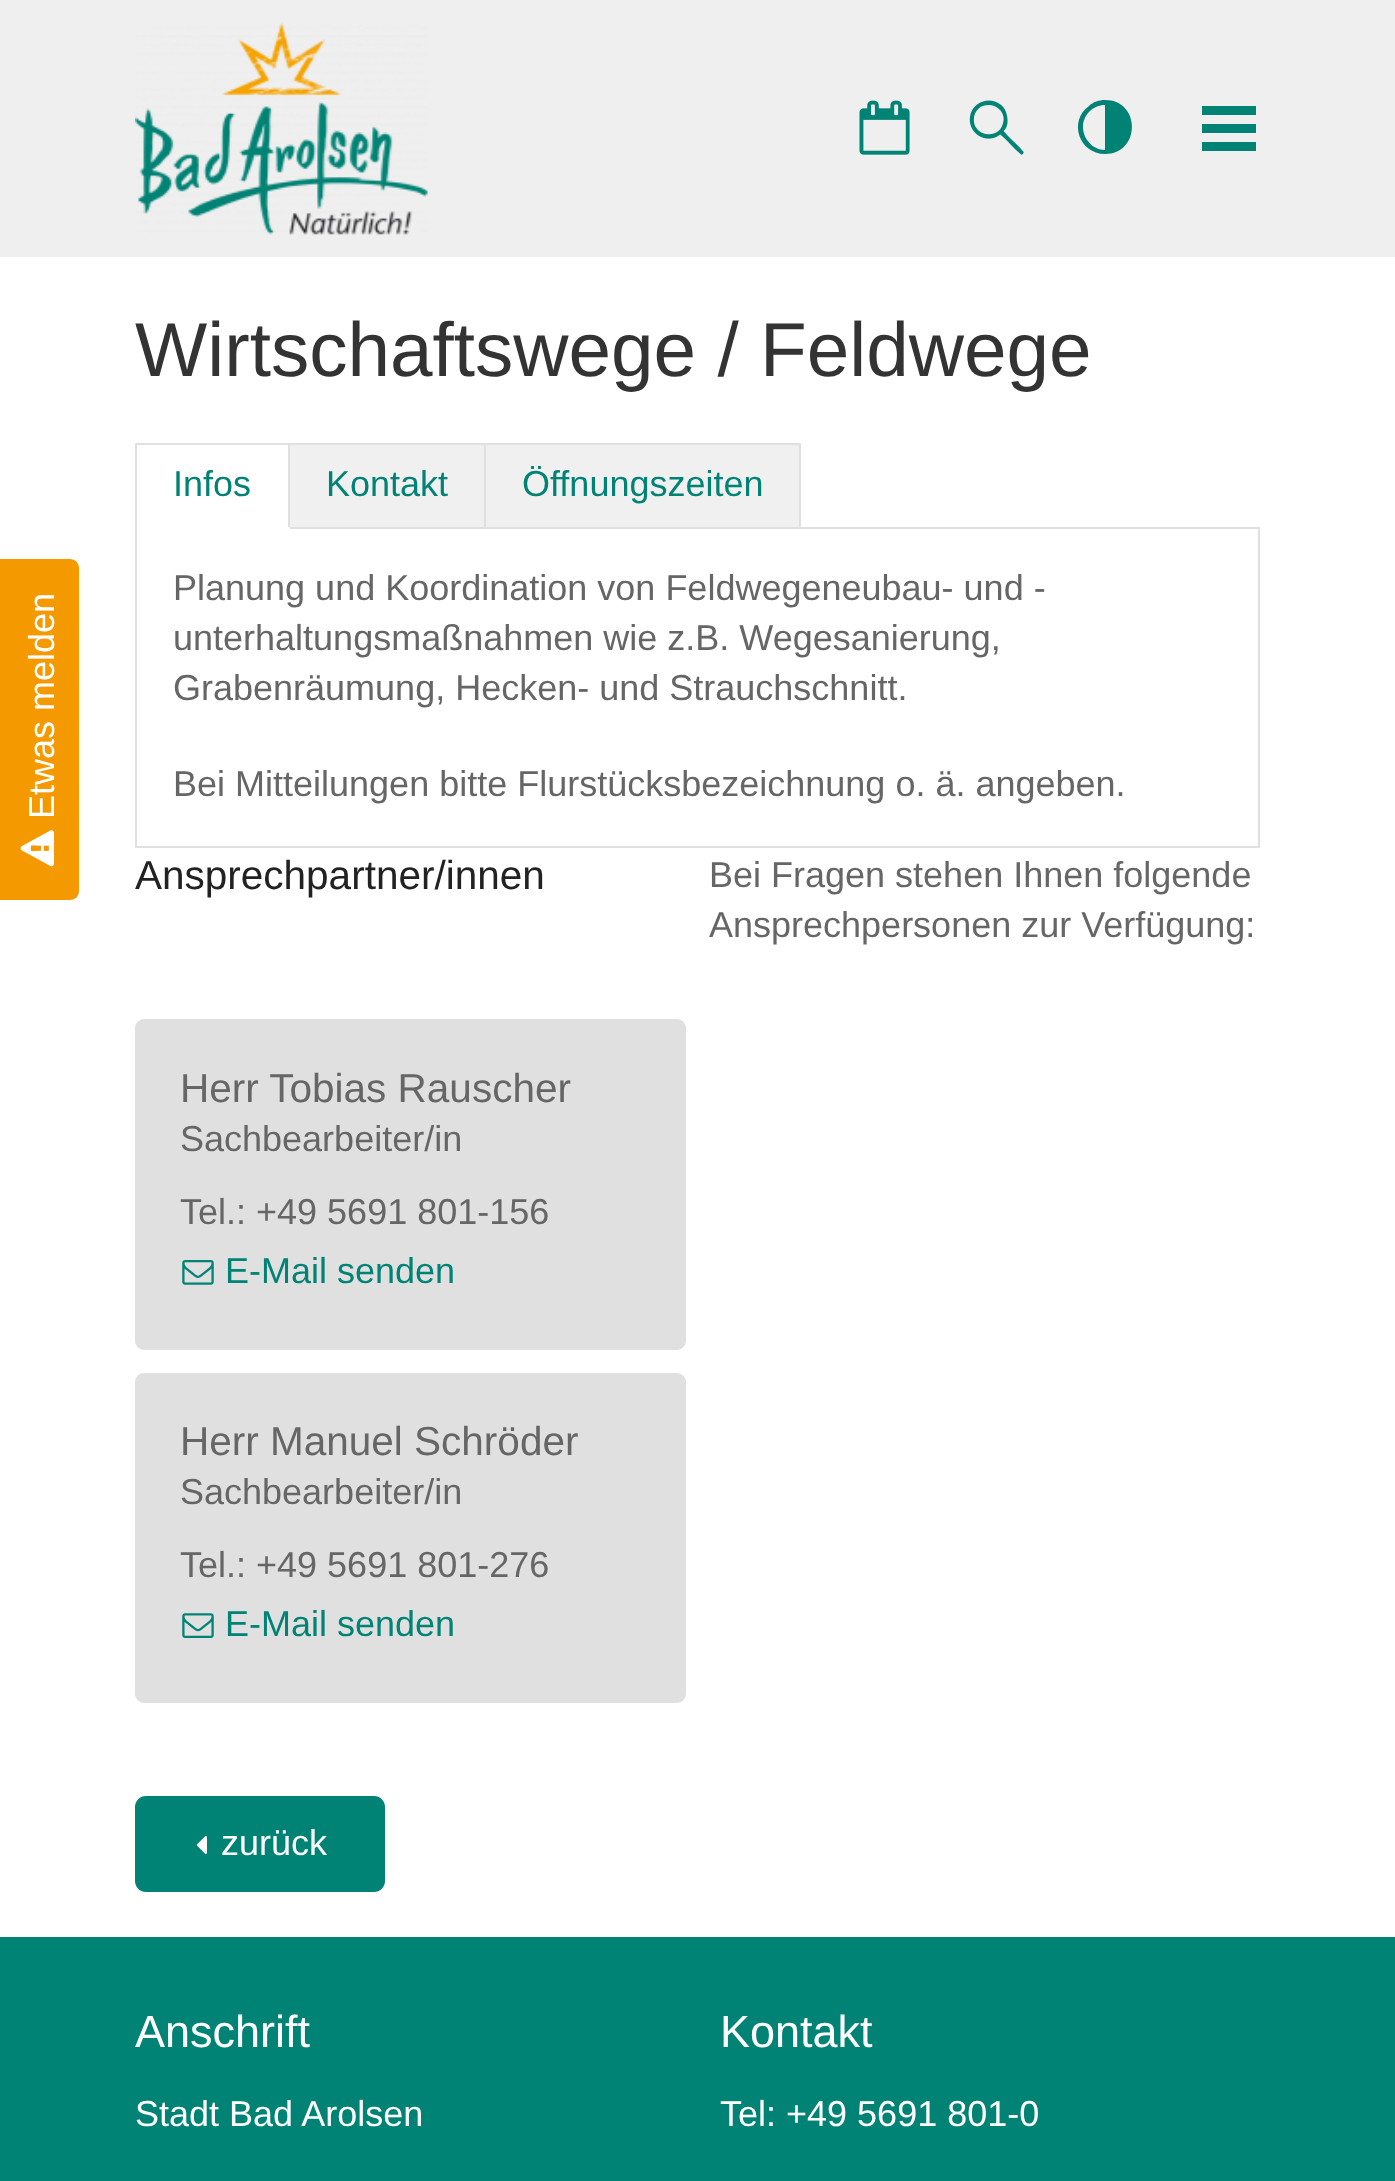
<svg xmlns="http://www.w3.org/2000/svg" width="1395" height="2181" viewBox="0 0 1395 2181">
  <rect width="100%" height="100%" fill="#ffffff"/>
  <rect x="0" y="0" width="1395" height="257" fill="#efefef"/>
  <image x="135" y="22" width="293" height="213" href="img1.png"/>
  <image x="859" y="100" width="51" height="55" href="img2.png"/>
  <image x="969" y="100" width="55" height="55" href="img3.png"/>
  <path d="M1105 100C1099 100 1093 102 1089 106C1068 121 1079 154 1105 154C1141 154 1141 100 1105 100ZM1083 127C1083 115 1093 105 1105 105V150C1093 150 1083 139 1083 127Z" fill="#008375"/>
  <rect x="1202" y="106" width="54" height="9" fill="#008375"/>
  <rect x="1202" y="124" width="54" height="9" fill="#008375"/>
  <rect x="1202" y="142" width="54" height="9" fill="#008375"/>
  <path d="M0 900V559H70C75 559 79 563 79 568V891C79 896 75 900 70 900Z" fill="#f49900"/>
  <text x="54" y="819" transform="rotate(-90 54 819)" font-family="Liberation Sans" font-size="36" fill="#ffffff">Etwas melden</text>
  <image x="20" y="830" width="34" height="37" href="img4.png"/>
  <text x="135" y="376" font-family="Liberation Sans" font-size="76.5" fill="#333333">Wirtschaftswege / Feldwege</text>
  <rect x="136" y="528" width="1123" height="319" fill="none" stroke="#e0e0e0" stroke-width="2"/>
  <rect x="135" y="443" width="2" height="86" fill="#e0e0e0"/>
  <rect x="137" y="443" width="664" height="2" fill="#e0e0e0"/>
  <rect x="288" y="443" width="2" height="86" fill="#e0e0e0"/>
  <rect x="137" y="527" width="153" height="2" fill="#ffffff"/>
  <text x="173" y="496" font-family="Liberation Sans" font-size="36" fill="#008375">Infos</text>
  <rect x="290" y="445" width="194" height="82" fill="#f0f0f0"/>
  <rect x="484" y="443" width="2" height="86" fill="#e0e0e0"/>
  <text x="326" y="496" font-family="Liberation Sans" font-size="36" fill="#008375">Kontakt</text>
  <rect x="486" y="445" width="313" height="82" fill="#f0f0f0"/>
  <rect x="799" y="443" width="2" height="86" fill="#e0e0e0"/>
  <text x="522" y="496" font-family="Liberation Sans" font-size="36" fill="#008375">Öffnungszeiten</text>
  <text x="173" y="600" font-family="Liberation Sans" font-size="36" fill="#666666">Planung und Koordination von Feldwegeneubau- und -</text>
  <text x="173" y="650" font-family="Liberation Sans" font-size="36" fill="#666666">unterhaltungsmaßnahmen wie z.B. Wegesanierung,</text>
  <text x="173" y="700" font-family="Liberation Sans" font-size="36" fill="#666666">Grabenräumung, Hecken- und Strauchschnitt.</text>
  <text x="173" y="796" font-family="Liberation Sans" font-size="36" fill="#666666">Bei Mitteilungen bitte Flurstücksbezeichnung o. ä. angeben.</text>
  <text x="135" y="889" font-family="Liberation Sans" font-size="40.5" fill="#222222">Ansprechpartner/innen</text>
  <text x="709" y="887" font-family="Liberation Sans" font-size="36" fill="#666666">Bei Fragen stehen Ihnen folgende</text>
  <text x="709" y="937" font-family="Liberation Sans" font-size="36" fill="#666666">Ansprechpersonen zur Verfügung:</text>
  <rect x="135" y="1019" width="551" height="331" rx="9" fill="#e0e0e0"/>
  <text x="180" y="1102" font-family="Liberation Sans" font-size="40.5" fill="#666666">Herr Tobias Rauscher</text>
  <text x="180" y="1151" font-family="Liberation Sans" font-size="36" fill="#666666">Sachbearbeiter/in</text>
  <text x="180" y="1224" font-family="Liberation Sans" font-size="36" fill="#666666">Tel.: +49 5691 801-156</text>
  <image x="182" y="1260" width="32" height="25" href="img5.png"/>
  <text x="225" y="1283" font-family="Liberation Sans" font-size="36" fill="#008375">E-Mail senden</text>
  <rect x="135" y="1373" width="551" height="330" rx="9" fill="#e0e0e0"/>
  <text x="180" y="1455" font-family="Liberation Sans" font-size="40.5" fill="#666666">Herr Manuel Schröder</text>
  <text x="180" y="1504" font-family="Liberation Sans" font-size="36" fill="#666666">Sachbearbeiter/in</text>
  <text x="180" y="1577" font-family="Liberation Sans" font-size="36" fill="#666666">Tel.: +49 5691 801-276</text>
  <image x="182" y="1613" width="32" height="25" href="img6.png"/>
  <text x="225" y="1636" font-family="Liberation Sans" font-size="36" fill="#008375">E-Mail senden</text>
  <rect x="137.5" y="1798.5" width="245" height="91" rx="8.5" fill="#008375" stroke="#008375" stroke-width="5"/>
  <image x="196" y="1836" width="11" height="18" href="img7.png"/>
  <text x="221" y="1855" font-family="Liberation Sans" font-size="36" fill="#ffffff">zurück</text>
  <rect x="0" y="1937" width="1395" height="244" fill="#008375"/>
  <text x="135" y="2047" font-family="Liberation Sans" font-size="45" fill="#ffffff">Anschrift</text>
  <text x="135" y="2126" font-family="Liberation Sans" font-size="36" fill="#ffffff">Stadt Bad Arolsen</text>
  <text x="720" y="2047" font-family="Liberation Sans" font-size="45" fill="#ffffff">Kontakt</text>
  <text x="720" y="2126" font-family="Liberation Sans" font-size="36" fill="#ffffff">Tel: +49 5691 801-0</text>
</svg>
